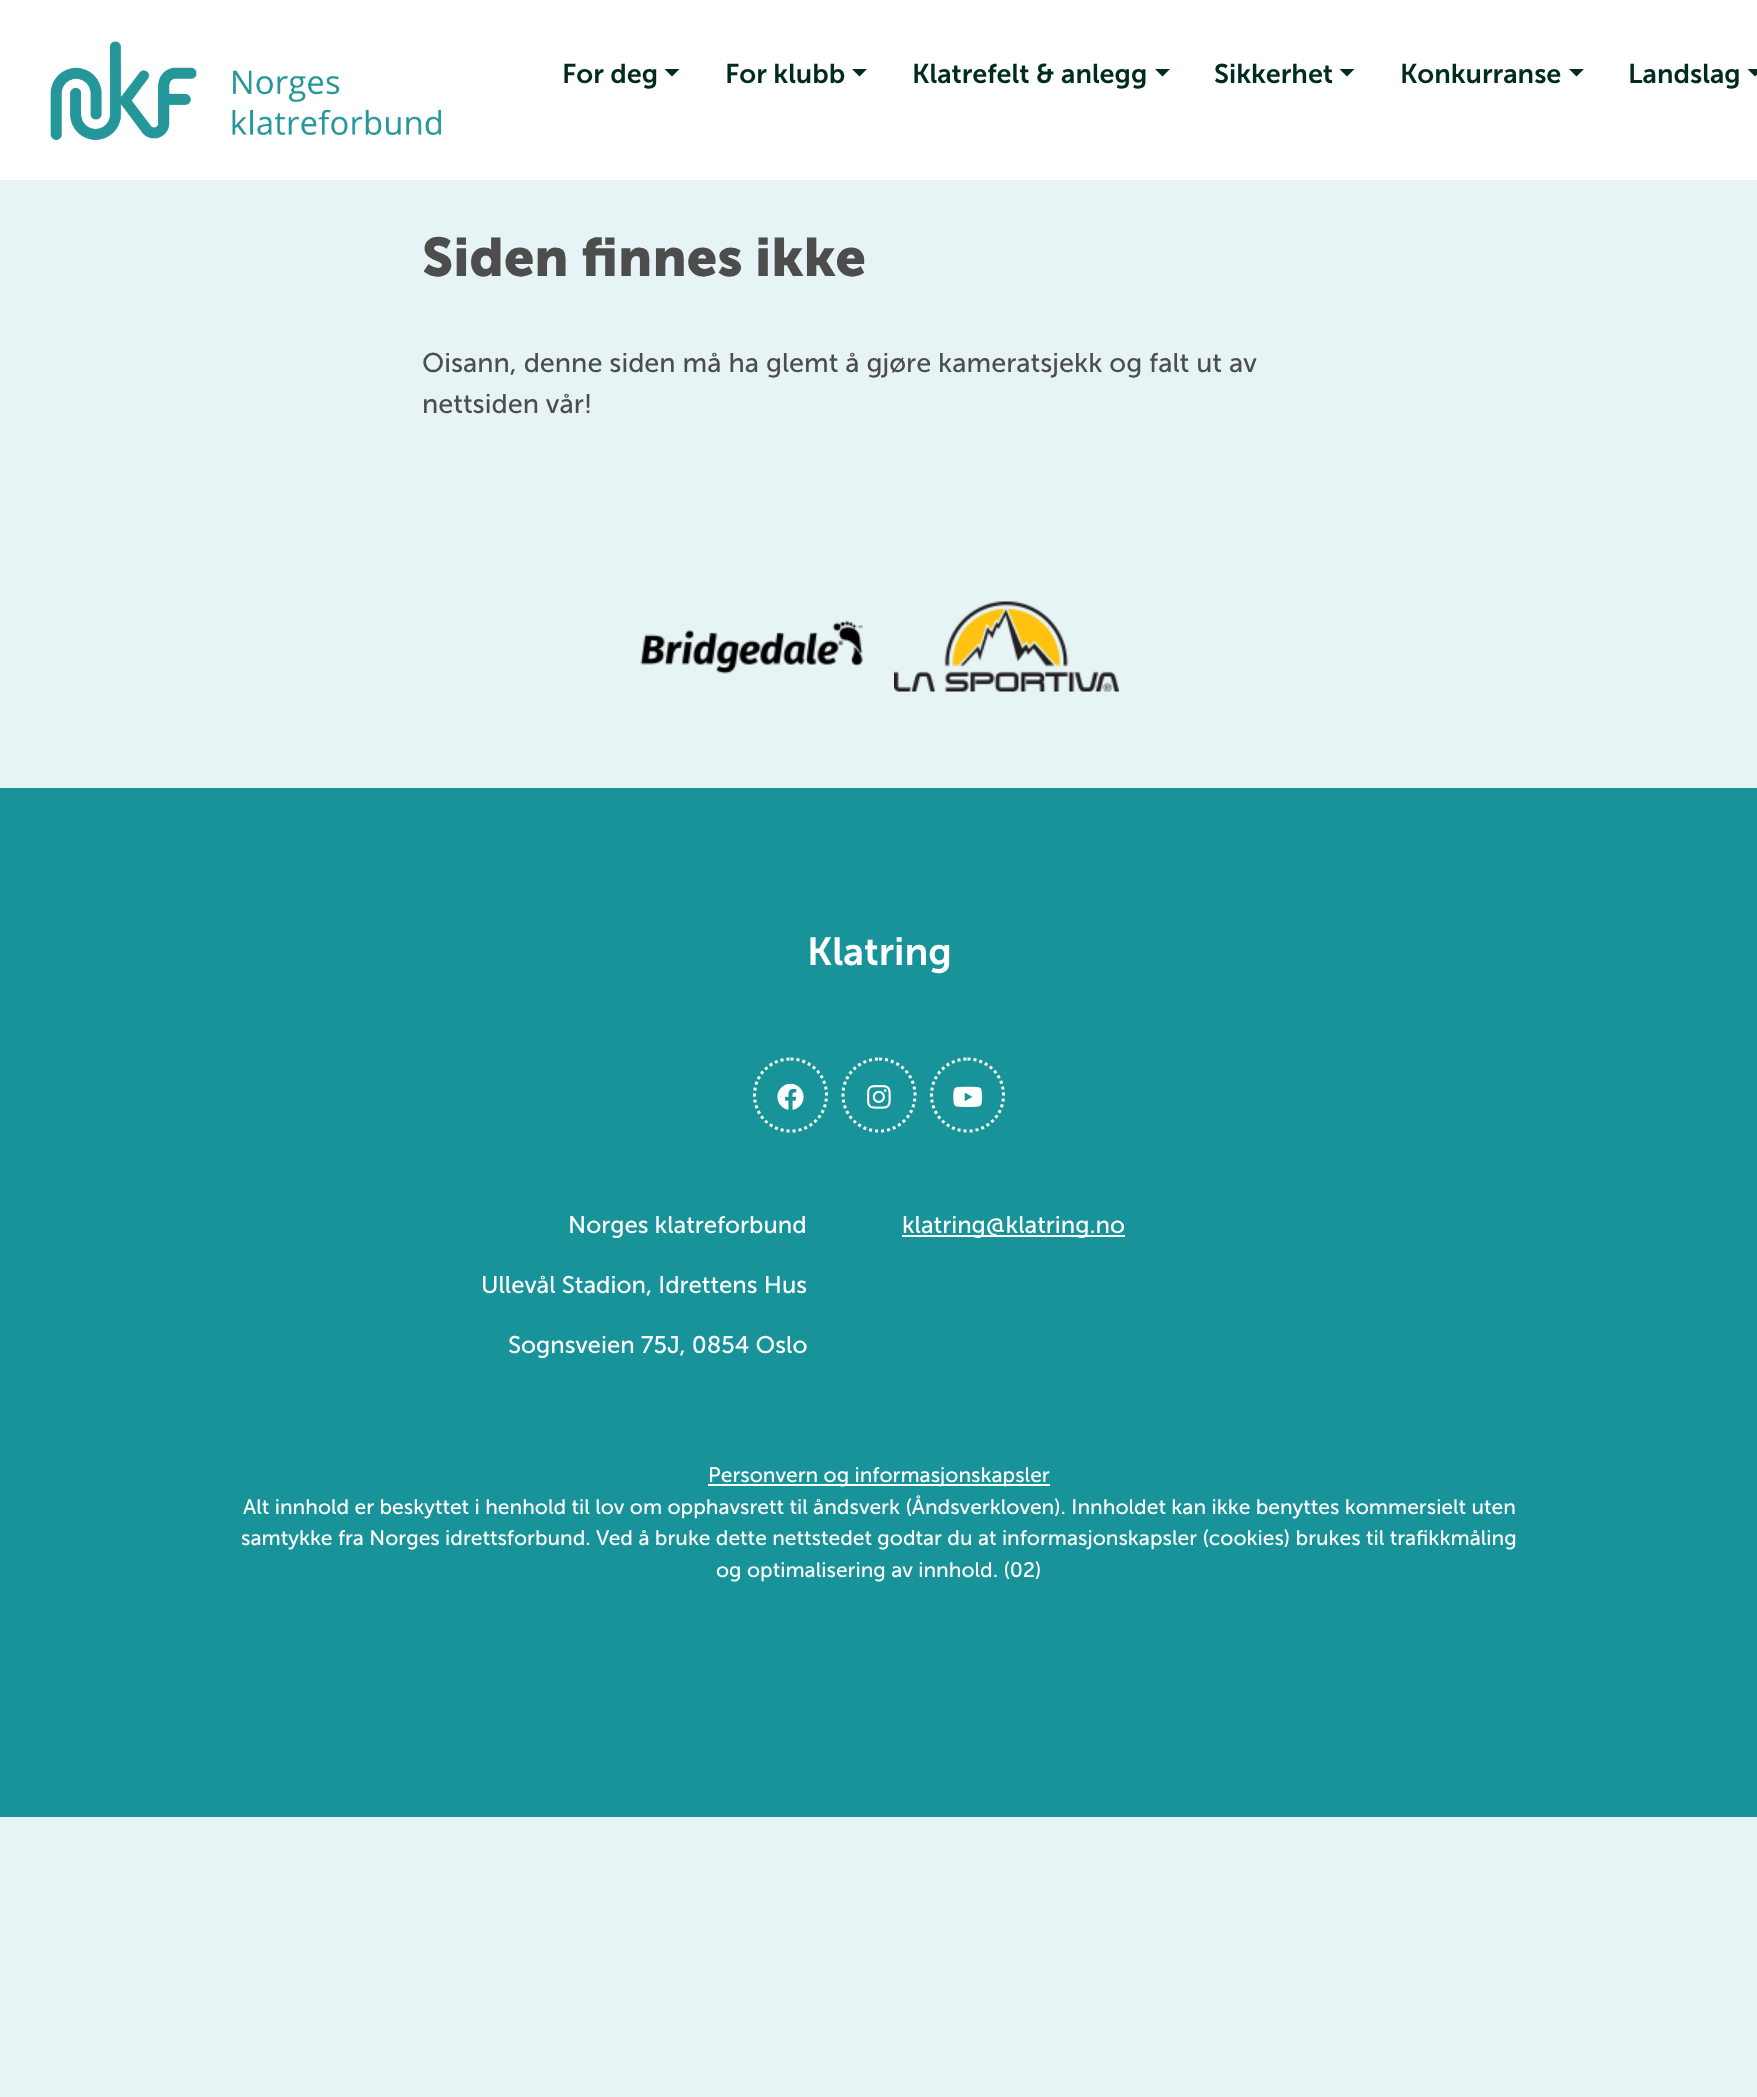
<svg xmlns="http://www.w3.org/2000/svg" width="1757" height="2097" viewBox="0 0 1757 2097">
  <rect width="100%" height="100%" fill="#e7f4f5"/>
  <rect x="0" y="0" width="1757" height="180" fill="#ffffff"/>
  <image x="50" y="41" width="391" height="100" href="img1.png"/>
  <text x="562" y="83" font-family="'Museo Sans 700'" font-size="27" font-weight="600" fill="#002b20">For deg</text>
  <path d="M664.5 69H679.5L672 76.5Z" fill="#002b20"/>
  <text x="725" y="83" font-family="'Museo Sans 700'" font-size="27" font-weight="600" fill="#002b20">For klubb</text>
  <path d="M852 69H867L859.5 76.5Z" fill="#002b20"/>
  <text x="912" y="83" font-family="'Museo Sans 700'" font-size="27" font-weight="600" fill="#002b20">Klatrefelt &amp; anlegg</text>
  <path d="M1155 69H1170L1162.5 76.5Z" fill="#002b20"/>
  <text x="1214" y="83" font-family="'Museo Sans 700'" font-size="27" font-weight="600" fill="#002b20">Sikkerhet</text>
  <path d="M1339.5 69H1354.5L1347 76.5Z" fill="#002b20"/>
  <text x="1400" y="83" font-family="'Museo Sans 700'" font-size="27" font-weight="600" fill="#002b20">Konkurranse</text>
  <path d="M1569 69H1584L1576.5 76.5Z" fill="#002b20"/>
  <text x="1628" y="83" font-family="'Museo Sans 700'" font-size="27" font-weight="600" fill="#002b20">Landslag</text>
  <path d="M1747.5 69H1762.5L1755 76.5Z" fill="#002b20"/>
  <text x="422" y="276" font-family="'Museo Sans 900'" font-size="54" font-weight="bold" fill="#4d4d4d">Siden finnes ikke</text>
  <text x="422" y="372" font-family="'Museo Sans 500'" font-size="27" fill="#4d4d4d">Oisann, denne siden må ha glemt å gjøre kameratsjekk og falt ut av</text>
  <text x="422" y="413" font-family="'Museo Sans 500'" font-size="27" fill="#4d4d4d">nettsiden vår!</text>
  <image x="640" y="620" width="223" height="54" href="img2.png"/>
  <image x="894" y="601" width="225" height="91" href="img3.png"/>
  <rect x="0" y="788" width="1757" height="1029" fill="#18939a"/>
  <text x="807" y="965" font-family="'Museo Sans 700'" font-size="39" font-weight="600" fill="#ffffff">Klatring</text>
  <path d="M790.5 1059C810.5 1059 826.5 1075 826.5 1095C826.5 1115 810.5 1131 790.5 1131C770.5 1131 754.5 1115 754.5 1095C754.5 1075 770.5 1059 790.5 1059Z" fill="none" stroke="#ffffff" stroke-width="3" stroke-dasharray="3 3"/>
  <image x="777" y="1083" width="27" height="27" href="img4.png"/>
  <path d="M879 1059C899 1059 915 1075 915 1095C915 1115 899 1131 879 1131C859 1131 843 1115 843 1095C843 1075 859 1059 879 1059Z" fill="none" stroke="#ffffff" stroke-width="3" stroke-dasharray="3 3"/>
  <image x="867" y="1085" width="24" height="24" href="img5.png"/>
  <path d="M967.5 1059C987.5 1059 1003.5 1075 1003.5 1095C1003.5 1115 987.5 1131 967.5 1131C947.5 1131 931.5 1115 931.5 1095C931.5 1075 947.5 1059 967.5 1059Z" fill="none" stroke="#ffffff" stroke-width="3" stroke-dasharray="3 3"/>
  <image x="953" y="1086" width="30" height="21" href="img6.png"/>
  <text x="568" y="1233" font-family="'Museo Sans 500'" font-size="24" fill="#ffffff">Norges klatreforbund</text>
  <text x="481" y="1293" font-family="'Museo Sans 500'" font-size="24" fill="#ffffff">Ullevål Stadion, Idrettens Hus</text>
  <text x="508" y="1353" font-family="'Museo Sans 500'" font-size="24" fill="#ffffff">Sognsveien 75J, 0854 Oslo</text>
  <rect x="902" y="1235" width="223" height="2" fill="#ffffff"/>
  <text x="902" y="1233" font-family="'Museo Sans 500'" font-size="24" fill="#ffffff">klatring@klatring.no</text>
  <rect x="708" y="1484" width="342" height="2" fill="#ffffff"/>
  <text x="708" y="1482" font-family="'Museo Sans 500'" font-size="21" fill="#ffffff">Personvern og informasjonskapsler</text>
  <text x="243" y="1514" font-family="'Museo Sans 500'" font-size="21" fill="#ffffff">Alt innhold er beskyttet i henhold til lov om opphavsrett til åndsverk (Åndsverkloven). Innholdet kan ikke benyttes kommersielt uten</text>
  <text x="241" y="1545" font-family="'Museo Sans 500'" font-size="21" fill="#ffffff">samtykke fra Norges idrettsforbund. Ved å bruke dette nettstedet godtar du at informasjonskapsler (cookies) brukes til trafikkmåling</text>
  <text x="716" y="1577" font-family="'Museo Sans 500'" font-size="21" fill="#ffffff">og optimalisering av innhold. (02)</text>
</svg>
